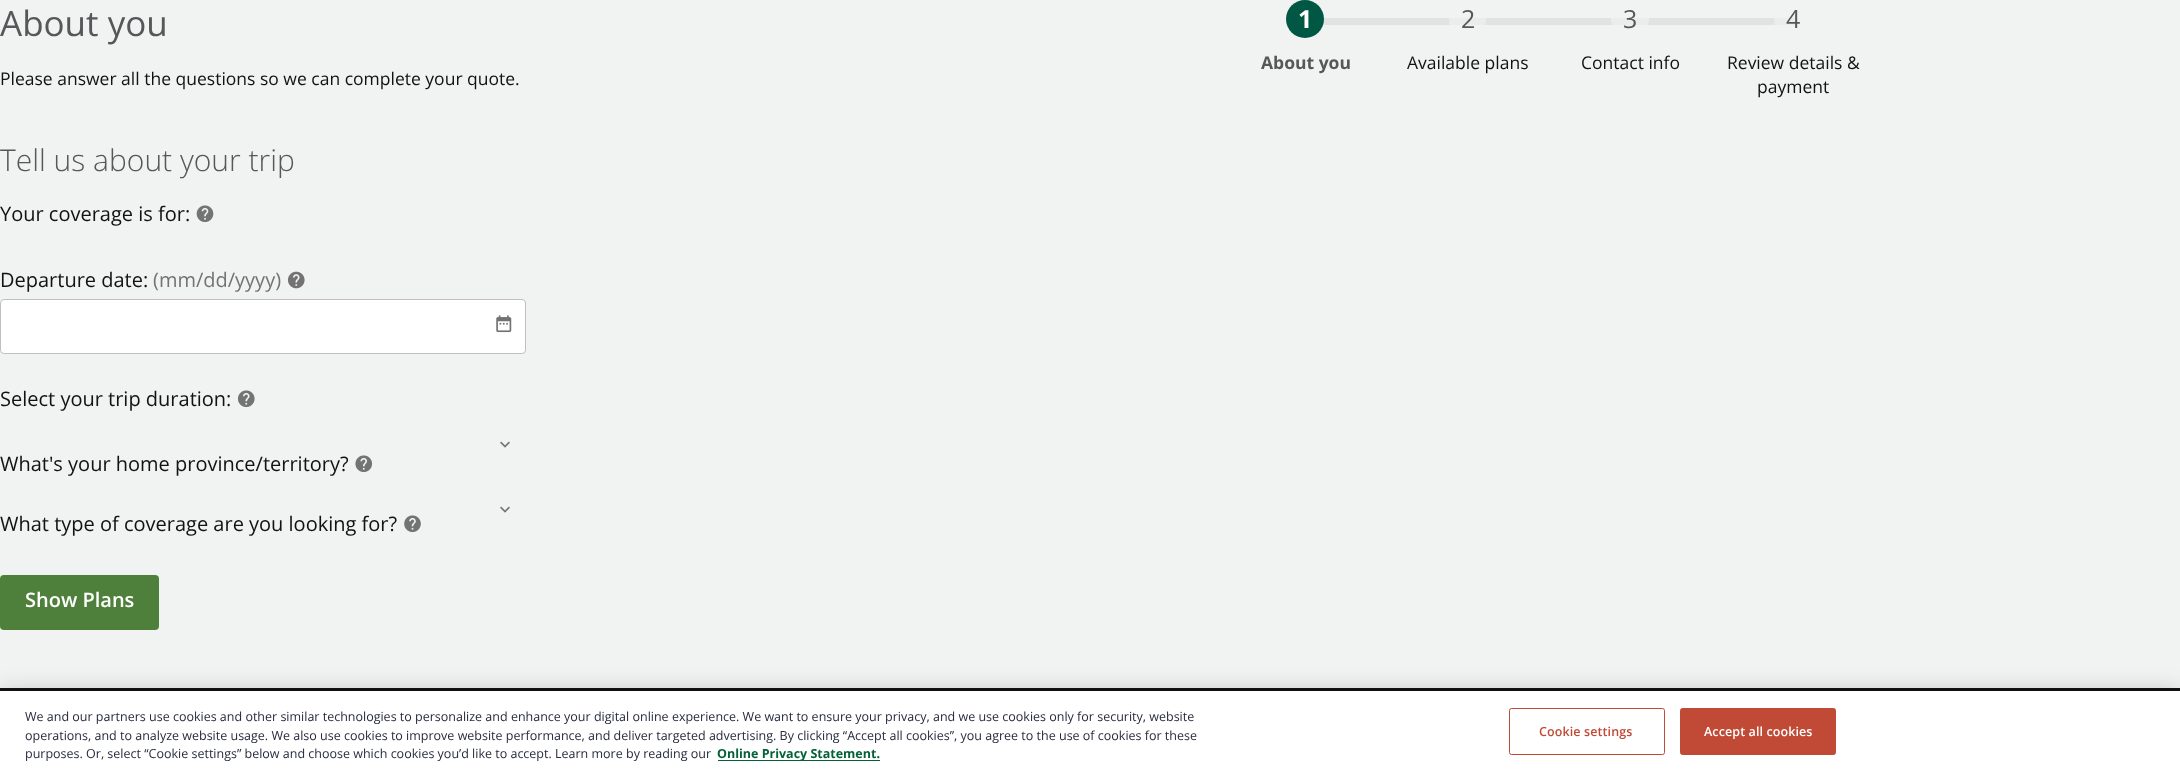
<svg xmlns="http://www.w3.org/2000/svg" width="2180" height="771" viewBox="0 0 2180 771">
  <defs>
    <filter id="blur1" x="-50%" y="-200%" width="200%" height="500%"><feGaussianBlur stdDeviation="11"/></filter>
  </defs>
  <rect width="100%" height="100%" fill="#f1f3f3"/>
  <text x="0" y="36" font-family="Open Sans" font-size="35" fill="#555858">About you</text>
  <text x="0" y="85" font-family="Open Sans" font-size="17.5" fill="#111212">Please answer all the questions so we can complete your quote.</text>
  <rect x="1323" y="18" width="472" height="7" fill="#e0e3e2"/>
  <circle cx="1305" cy="19" r="19" fill="#005844"/>
  <text x="1298" y="28" font-family="Open Sans" font-size="25" font-weight="bold" fill="#ffffff">1</text>
  <text x="1261" y="69" font-family="Open Sans" font-size="17.5" font-weight="bold" fill="#555858">About you</text>
  <rect x="1449" y="0" width="37" height="38" rx="18.5" fill="#f1f1f1" fill-opacity="0.65"/>
  <text x="1461" y="28" font-family="Open Sans" font-size="25" fill="#555858">2</text>
  <text x="1407" y="69" font-family="Open Sans" font-size="17.5" fill="#111212">Available plans</text>
  <circle cx="1630" cy="19" r="19" fill="#f1f1f1" fill-opacity="0.65"/>
  <text x="1623" y="28" font-family="Open Sans" font-size="25" fill="#555858">3</text>
  <text x="1581" y="69" font-family="Open Sans" font-size="17.5" fill="#111212">Contact info</text>
  <rect x="1774" y="0" width="37" height="38" rx="18.5" fill="#f1f1f1" fill-opacity="0.65"/>
  <text x="1786" y="28" font-family="Open Sans" font-size="25" fill="#555858">4</text>
  <text x="1727" y="69" font-family="Open Sans" font-size="17.5" fill="#111212">Review details &amp;</text>
  <text x="1757" y="93" font-family="Open Sans" font-size="17.5" fill="#111212">payment</text>
  <text x="0" y="171" font-family="Open Sans" font-size="30" font-weight="300" fill="#555858">Tell us about your trip</text>
  <text x="0" y="221" font-family="Open Sans" font-size="20" fill="#111212">Your coverage is for:</text>
  <image x="196" y="205" width="18" height="17" href="img1.png"/>
  <text x="0" y="287" font-family="Open Sans" font-size="20" fill="#111212">Departure date:</text>
  <text x="153" y="287" font-family="Open Sans" font-size="20" fill="#737373">(mm/dd/yyyy)</text>
  <image x="288" y="271" width="17" height="18" href="img2.png"/>
  <rect x="1" y="300" width="524" height="53" rx="2.5" fill="#ffffff"/>
  <rect x="0.5" y="299.5" width="525" height="54" rx="3.5" fill="none" stroke="#c0c0c0"/>
  <image x="496" y="315" width="16" height="18" href="img3.png"/>
  <text x="0" y="406" font-family="Open Sans" font-size="20" fill="#111212">Select your trip duration:</text>
  <image x="237" y="390" width="18" height="18" href="img4.png"/>
  <image x="500" y="441" width="10" height="7" href="img5.png"/>
  <text x="0" y="471" font-family="Open Sans" font-size="20" fill="#111212">What's your home province/territory?</text>
  <image x="355" y="455" width="18" height="18" href="img6.png"/>
  <image x="500" y="506" width="10" height="7" href="img5.png"/>
  <text x="0" y="531" font-family="Open Sans" font-size="20" fill="#111212">What type of coverage are you looking for?</text>
  <image x="404" y="515" width="17" height="18" href="img7.png"/>
  <rect x="0" y="575" width="159" height="55" rx="4" fill="#4e803b"/>
  <text x="25" y="607" font-family="Open Sans" font-size="20" font-weight="600" fill="#ffffff">Show Plans</text>
  <rect x="0" y="688" width="2180" height="3" fill="#111212"/>
  <rect x="0" y="691" width="2180" height="80" fill="#000000" fill-opacity="0.2" filter="url(#blur1)"/>
  <rect x="0" y="691" width="2180" height="80" fill="#ffffff"/>
  <text x="25" y="721" font-family="Open Sans" font-size="12.5" fill="#282b3e">We and our partners use cookies and other similar technologies to personalize and enhance your digital online experience. We want to ensure your privacy, and we use cookies only for security, website</text>
  <text x="25" y="740" font-family="Open Sans" font-size="12.5" fill="#282b3e">operations, and to analyze website usage. We also use cookies to improve website performance, and deliver targeted advertising. By clicking “Accept all cookies”, you agree to the use of cookies for these</text>
  <text x="25" y="758" font-family="Open Sans" font-size="12.5" fill="#282b3e">purposes. Or, select “Cookie settings” below and choose which cookies you’d like to accept. Learn more by reading our</text>
  <rect x="718" y="760" width="162" height="1" fill="#046138"/>
  <text x="717" y="758" font-family="Open Sans" font-size="12.5" font-weight="bold" fill="#046138">Online Privacy Statement.</text>
  <rect x="1509.5" y="708.5" width="155" height="46" rx="2" fill="none" stroke="#c14a36"/>
  <text x="1539" y="736" font-family="Open Sans" font-size="12.5" font-weight="600" letter-spacing="0.1" fill="#c14a36">Cookie settings</text>
  <rect x="1680.5" y="708.5" width="155" height="46" rx="2" fill="#c14a36" stroke="#c14a36"/>
  <text x="1704" y="736" font-family="Open Sans" font-size="12.5" font-weight="600" letter-spacing="0.1" fill="#ffffff">Accept all cookies</text>
</svg>
